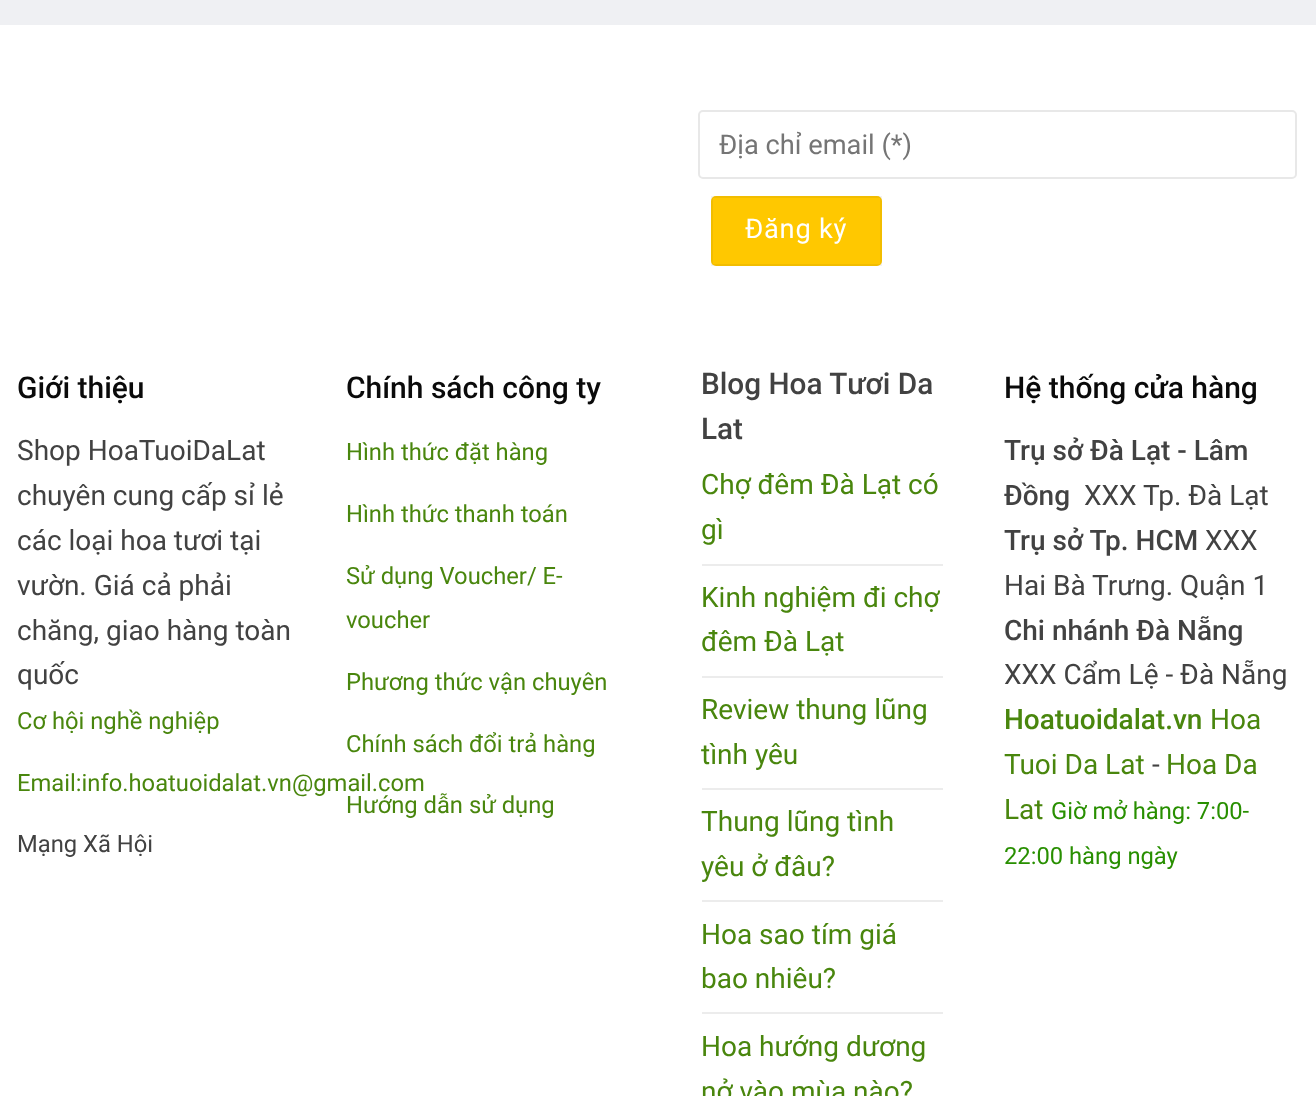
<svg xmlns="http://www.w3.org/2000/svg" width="1316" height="1096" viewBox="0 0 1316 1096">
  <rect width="100%" height="100%" fill="#ffffff"/>
  <rect x="0" y="0" width="1316" height="25" fill="#eff0f3"/>
  <rect x="699" y="111" width="597" height="67" rx="4" fill="none" stroke="#e8e8e8" stroke-width="2"/>
  <text x="719" y="154" font-family="Roboto" font-size="27.25" fill="#757575">Địa chỉ email (*)</text>
  <rect x="711" y="196" width="171" height="70" rx="5" fill="#ffc800"/>
  <rect x="712" y="197" width="169" height="68" fill="none" stroke="#000000" stroke-opacity="0.05" stroke-width="2"/>
  <text x="745" y="238" font-family="Roboto" font-size="27.25" letter-spacing="0.75" fill="#ffffff">Đăng ký</text>
  <text x="17" y="398" font-family="Roboto" font-size="30" font-weight="500" fill="#0a0a0a">Giới thiệu</text>
  <text x="17" y="460" font-family="Roboto" font-size="28" fill="#424242">Shop HoaTuoiDaLat</text>
  <text x="17" y="505" font-family="Roboto" font-size="28" fill="#424242">chuyên cung cấp sỉ lẻ</text>
  <text x="17" y="550" font-family="Roboto" font-size="28" fill="#424242">các loại hoa tươi tại</text>
  <text x="17" y="595" font-family="Roboto" font-size="28" fill="#424242">vườn. Giá cả phải</text>
  <text x="17" y="640" font-family="Roboto" font-size="28" fill="#424242">chăng, giao hàng toàn</text>
  <text x="17" y="684" font-family="Roboto" font-size="28" fill="#424242">quốc</text>
  <text x="17" y="729" font-family="Roboto" font-size="23.75" fill="#49860d">Cơ hội nghề nghiệp</text>
  <text x="17" y="791" font-family="Roboto" font-size="23.75" fill="#49860d">Email:info.hoatuoidalat.vn@gmail.com</text>
  <text x="17" y="852" font-family="Roboto" font-size="23.75" fill="#424242">Mạng Xã Hội</text>
  <text x="346" y="398" font-family="Roboto" font-size="30" font-weight="500" fill="#0a0a0a">Chính sách công ty</text>
  <text x="346" y="460" font-family="Roboto" font-size="23.75" fill="#49860d">Hình thức đặt hàng</text>
  <text x="346" y="522" font-family="Roboto" font-size="23.75" fill="#49860d">Hình thức thanh toán</text>
  <text x="346" y="584" font-family="Roboto" font-size="23.75" fill="#49860d">Sử dụng Voucher/ E-</text>
  <text x="346" y="628" font-family="Roboto" font-size="23.75" fill="#49860d">voucher</text>
  <text x="346" y="690" font-family="Roboto" font-size="23.75" fill="#49860d">Phương thức vận chuyên</text>
  <text x="346" y="752" font-family="Roboto" font-size="23.75" fill="#49860d">Chính sách đổi trả hàng</text>
  <text x="346" y="813" font-family="Roboto" font-size="23.75" fill="#49860d">Hướng dẫn sử dụng</text>
  <text x="701" y="394" font-family="Roboto" font-size="29.75" font-weight="500" fill="#424242">Blog Hoa Tươi Da</text>
  <text x="701" y="439" font-family="Roboto" font-size="29.75" font-weight="500" fill="#424242">Lat</text>
  <text x="701" y="494" font-family="Roboto" font-size="28" fill="#49860d">Chợ đêm Đà Lạt có</text>
  <text x="701" y="539" font-family="Roboto" font-size="28" fill="#49860d">gì</text>
  <rect x="702" y="564" width="241" height="2" fill="#ececec"/>
  <text x="701" y="607" font-family="Roboto" font-size="28" fill="#49860d">Kinh nghiệm đi chợ</text>
  <text x="701" y="651" font-family="Roboto" font-size="28" fill="#49860d">đêm Đà Lạt</text>
  <rect x="702" y="676" width="241" height="2" fill="#ececec"/>
  <text x="701" y="719" font-family="Roboto" font-size="28" fill="#49860d">Review thung lũng</text>
  <text x="701" y="764" font-family="Roboto" font-size="28" fill="#49860d">tình yêu</text>
  <rect x="702" y="788" width="241" height="2" fill="#ececec"/>
  <text x="701" y="831" font-family="Roboto" font-size="28" fill="#49860d">Thung lũng tình</text>
  <text x="701" y="876" font-family="Roboto" font-size="28" fill="#49860d">yêu ở đâu?</text>
  <rect x="702" y="900" width="241" height="2" fill="#ececec"/>
  <text x="701" y="944" font-family="Roboto" font-size="28" fill="#49860d">Hoa sao tím giá</text>
  <text x="701" y="988" font-family="Roboto" font-size="28" fill="#49860d">bao nhiêu?</text>
  <rect x="702" y="1012" width="241" height="2" fill="#ececec"/>
  <text x="701" y="1056" font-family="Roboto" font-size="28" fill="#49860d">Hoa hướng dương</text>
  <text x="701" y="1101" font-family="Roboto" font-size="28" fill="#49860d">nở vào mùa nào?</text>
  <text x="1004" y="398" font-family="Roboto" font-size="30" font-weight="500" fill="#0a0a0a">Hệ thống cửa hàng</text>
  <text x="1004" y="460" font-family="Roboto" font-size="28" font-weight="500" fill="#424242">Trụ sở Đà Lạt - Lâm</text>
  <text x="1004" y="505" font-family="Roboto" font-size="28" font-weight="500" fill="#424242">Đồng</text>
  <text x="1084" y="505" font-family="Roboto" font-size="28" fill="#424242">XXX Tp. Đà Lạt</text>
  <text x="1004" y="550" font-family="Roboto" font-size="28" font-weight="500" fill="#424242">Trụ sở Tp. HCM</text>
  <text x="1205" y="550" font-family="Roboto" font-size="28" fill="#424242">XXX</text>
  <text x="1004" y="595" font-family="Roboto" font-size="28" fill="#424242">Hai Bà Trưng. Quận 1</text>
  <text x="1004" y="640" font-family="Roboto" font-size="28" font-weight="500" fill="#424242">Chi nhánh Đà Nẵng</text>
  <text x="1004" y="684" font-family="Roboto" font-size="28" fill="#424242">XXX Cẩm Lệ - Đà Nẵng</text>
  <text x="1004" y="729" font-family="Roboto" font-size="28" font-weight="500" fill="#49860d">Hoatuoidalat.vn</text>
  <text x="1210" y="729" font-family="Roboto" font-size="28" fill="#49860d">Hoa</text>
  <text x="1004" y="774" font-family="Roboto" font-size="28" fill="#49860d">Tuoi Da Lat</text>
  <text x="1152" y="774" font-family="Roboto" font-size="28" fill="#424242">-</text>
  <text x="1166" y="774" font-family="Roboto" font-size="28" fill="#49860d">Hoa Da</text>
  <text x="1004" y="819" font-family="Roboto" font-size="28" fill="#49860d">Lat</text>
  <text x="1051" y="819" font-family="Roboto" font-size="23.75" fill="#288f00">Giờ mở hàng: 7:00-</text>
  <text x="1004" y="864" font-family="Roboto" font-size="23.75" fill="#288f00">22:00 hàng ngày</text>
</svg>
